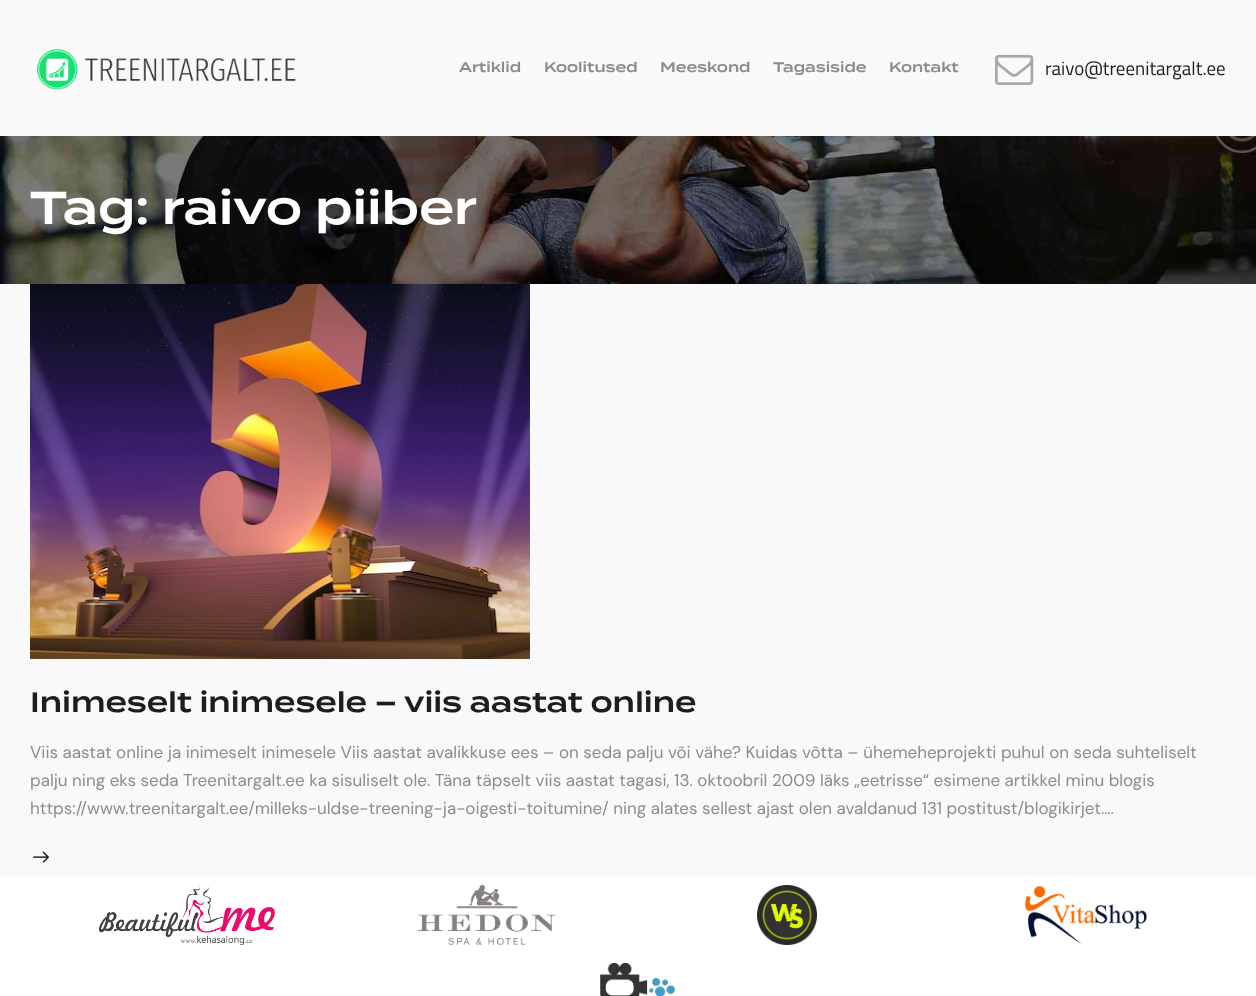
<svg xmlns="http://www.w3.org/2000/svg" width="1256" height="996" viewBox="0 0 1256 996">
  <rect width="100%" height="100%" fill="#f9f9f9"/>
  <image x="37" y="48" width="259" height="42" href="img1.png"/>
  <text x="459" y="72" font-family="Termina" font-size="14" font-weight="600" fill="#8c8c8c">Artiklid</text>
  <text x="544" y="72" font-family="Termina" font-size="14" font-weight="600" fill="#8c8c8c">Koolitused</text>
  <text x="660" y="72" font-family="Termina" font-size="14" font-weight="600" fill="#8c8c8c">Meeskond</text>
  <text x="773" y="72" font-family="Termina" font-size="14" font-weight="600" fill="#8c8c8c">Tagasiside</text>
  <text x="889" y="72" font-family="Termina" font-size="14" font-weight="600" fill="#8c8c8c">Kontakt</text>
  <image x="995" y="54" width="39" height="31" href="img2.png"/>
  <text x="1045" y="75" font-family="Titillium Web" font-size="19" fill="#1b1e1e">raivo@treenitargalt.ee</text>
  <image x="0" y="136" width="1256" height="148" href="img3.png"/>
  <text x="30" y="224" font-family="Termina" font-size="46" font-weight="600" fill="#ffffff">Tag: raivo piiber</text>
  <image x="30" y="284" width="500" height="375" href="img4.png"/>
  <text x="30" y="712" font-family="Termina" font-size="28" font-weight="600" fill="#1b1e1e">Inimeselt inimesele – viis aastat online</text>
  <text x="30" y="758" font-family="DM Sans" font-size="17" fill="#8c8c8c">Viis aastat online ja inimeselt inimesele Viis aastat avalikkuse ees – on seda palju või vähe? Kuidas võtta – ühemeheprojekti puhul on seda suhteliselt</text>
  <text x="30" y="786" font-family="DM Sans" font-size="17" fill="#8c8c8c">palju ning eks seda Treenitargalt.ee ka sisuliselt ole. Täna täpselt viis aastat tagasi, 13. oktoobril 2009 läks „eetrisse“ esimene artikkel minu blogis</text>
  <text x="30" y="814" font-family="DM Sans" font-size="17" fill="#8c8c8c">https://www.treenitargalt.ee/milleks-uldse-treening-ja-oigesti-toitumine/ ning alates sellest ajast olen avaldanud 131 postitust/blogikirjet.…</text>
  <image x="33" y="851" width="16" height="12" href="img5.png"/>
  <rect x="0" y="876" width="1256" height="120" fill="#ffffff"/>
  <image x="99" y="885" width="176" height="60" href="img6.png"/>
  <image x="418" y="885" width="138" height="60" href="img7.png"/>
  <image x="757" y="885" width="60" height="60" href="img8.png"/>
  <image x="1024" y="885" width="123" height="59" href="img9.png"/>
  <image x="600" y="963" width="75" height="33" href="img10.png"/>
</svg>
